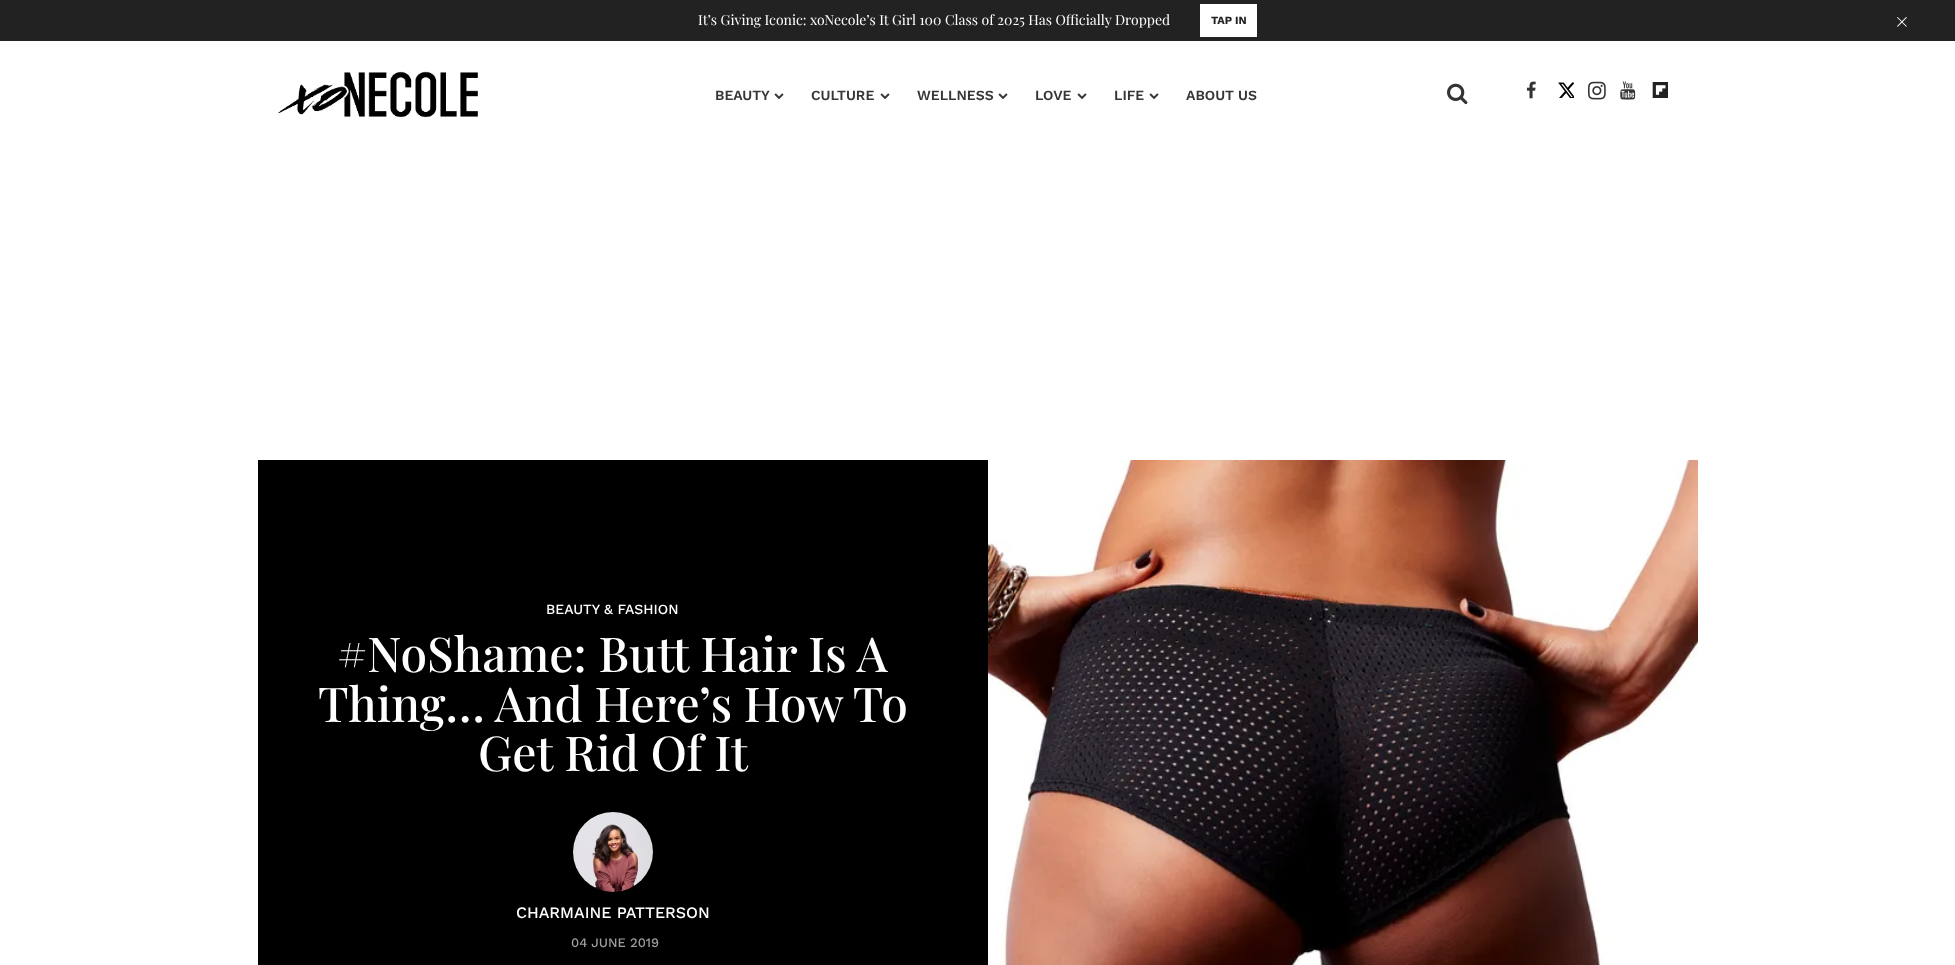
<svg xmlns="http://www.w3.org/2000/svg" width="1955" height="965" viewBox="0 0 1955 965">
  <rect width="100%" height="100%" fill="#ffffff"/>
  <rect x="0" y="0" width="1955" height="41" fill="#222222"/>
  <text x="698" y="25" font-family="Playfair Display" font-size="14" fill="#ffffff">It’s Giving Iconic: xoNecole’s It Girl 100 Class of 2025 Has Officially Dropped</text>
  <rect x="1200" y="4" width="57" height="33" fill="#ffffff"/>
  <text x="1211" y="24" font-family="Work Sans" font-size="11" font-weight="bold" fill="#222222">TAP IN</text>
  <text x="1890" y="23" transform="rotate(45 1890 23)" font-family="Playfair Display" font-size="26" fill="#ffffff">+</text>
  <image x="277" y="71" width="201" height="47" href="img1.png"/>
  <text x="715" y="100" font-family="Work Sans" font-size="14" font-weight="600" fill="#363636">BEAUTY</text>
  <image x="774" y="93" width="10" height="7" href="img2.png"/>
  <text x="811" y="100" font-family="Work Sans" font-size="14" font-weight="600" fill="#363636">CULTURE</text>
  <image x="880" y="93" width="10" height="7" href="img2.png"/>
  <text x="917" y="100" font-family="Work Sans" font-size="14" font-weight="600" fill="#363636">WELLNESS</text>
  <image x="998" y="93" width="10" height="7" href="img2.png"/>
  <text x="1035" y="100" font-family="Work Sans" font-size="14" font-weight="600" fill="#363636">LOVE</text>
  <image x="1077" y="93" width="10" height="7" href="img2.png"/>
  <text x="1114" y="100" font-family="Work Sans" font-size="14" font-weight="600" fill="#363636">LIFE</text>
  <image x="1149" y="93" width="10" height="7" href="img2.png"/>
  <text x="1186" y="100" font-family="Work Sans" font-size="14" font-weight="600" fill="#363636">ABOUT US</text>
  <image x="1447" y="83" width="21" height="22" href="img3.png"/>
  <image x="1526" y="81" width="10" height="18" href="img4.png"/>
  <image x="1558" y="82" width="16" height="16" href="img5.png"/>
  <image x="1588" y="81" width="18" height="19" href="img6.png"/>
  <image x="1620" y="81" width="16" height="19" href="img7.png"/>
  <image x="1652" y="82" width="16" height="16" href="img8.png"/>
  <rect x="258" y="460" width="730" height="505" fill="#000000"/>
  <text x="546" y="614" font-family="Work Sans" font-size="14" font-weight="500" fill="#ffffff">BEAUTY &amp; FASHION</text>
  <text x="337" y="672" font-family="Playfair Display" font-size="48" font-weight="500" fill="#ffffff">#NoShame: Butt Hair Is A</text>
  <text x="318" y="722" font-family="Playfair Display" font-size="48" font-weight="500" fill="#ffffff">Thing… And Here’s How To</text>
  <text x="478" y="771" font-family="Playfair Display" font-size="48" font-weight="500" fill="#ffffff">Get Rid Of It</text>
  <image x="573" y="812" width="80" height="80" href="img9.png"/>
  <text x="516" y="918" font-family="Work Sans" font-size="16" font-weight="500" fill="#ffffff">CHARMAINE PATTERSON</text>
  <text x="571" y="947" font-family="Work Sans" font-size="13" font-weight="500" fill="#9e9e9e">04 JUNE 2019</text>
  <image x="988" y="460" width="710" height="505" href="img10.png"/>
</svg>
